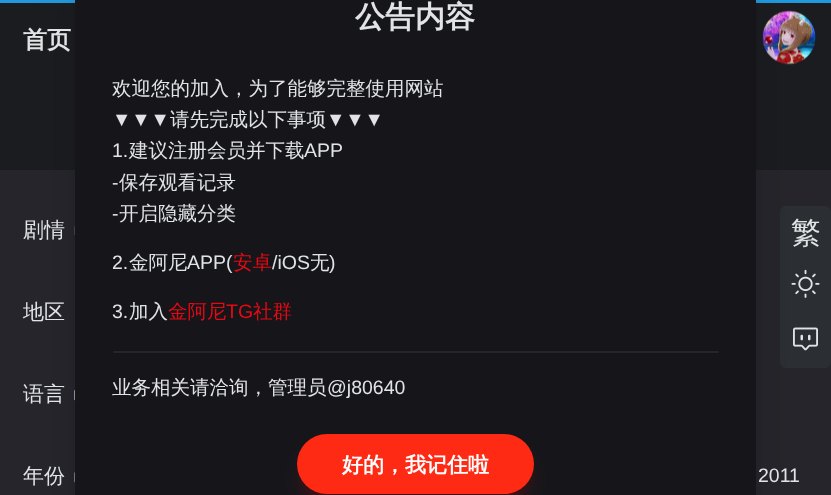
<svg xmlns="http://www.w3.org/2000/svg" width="831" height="495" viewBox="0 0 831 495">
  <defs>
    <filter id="blur1" x="-50%" y="-200%" width="200%" height="500%"><feGaussianBlur stdDeviation="7.5"/></filter>
    <filter id="blur2" x="-50%" y="-200%" width="200%" height="500%"><feGaussianBlur stdDeviation="23"/></filter>
    <filter id="blur3" x="-50%" y="-200%" width="200%" height="500%"><feGaussianBlur stdDeviation="5"/></filter>
    <filter id="blur4" x="-50%" y="-200%" width="200%" height="500%"><feGaussianBlur stdDeviation="9"/></filter>
  </defs>
  <rect width="100%" height="100%" fill="#1a1c1f"/>
  <rect x="0" y="0" width="831" height="3" fill="#2299dd"/>
  <image x="762" y="10" width="54" height="55" href="img1.png"/>
  <rect x="681" y="-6" width="150" height="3" fill="#2299dd" filter="url(#blur1)"/>
  <rect x="0" y="170" width="831" height="325" fill="#25252b"/>
  <image x="74" y="226" width="1" height="10" href="img2.png"/>
  <image x="74" y="390" width="1" height="11" href="img3.png"/>
  <image x="74" y="472" width="1" height="11" href="img4.png"/>
  <rect x="780" y="206" width="51" height="162" rx="6" fill="#2b2f33"/>
  <image x="791" y="269" width="29" height="29" href="img5.png"/>
  <image x="793" y="327" width="25" height="24" href="img6.png"/>
  <rect x="75" y="-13" width="681" height="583" rx="27" fill="#000000" fill-opacity="0.1" filter="url(#blur2)"/>
  <rect x="75" y="-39" width="681" height="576" rx="27" fill="#000000" fill-opacity="0.05" filter="url(#blur3)"/>
  <rect x="75" y="0" width="681" height="495" fill="#16161a"/>
  <text x="355" y="27" font-family="WenQuanYi Zen Hei" font-size="30" font-weight="bold" fill="#e1e3e5">公告内容</text>
  <text x="112" y="95" font-family="WenQuanYi Zen Hei" font-size="19.5" font-weight="500" fill="#e1e3e5">欢迎您的加入，为了能够完整使用网站</text>
  <text x="112" y="126" font-family="Liberation Sans" font-size="19.5" fill="#e1e3e5">▼▼▼</text>
  <text x="170" y="126" font-family="WenQuanYi Zen Hei" font-size="19.5" font-weight="500" fill="#e1e3e5">请先完成以下事项</text>
  <text x="326" y="126" font-family="Liberation Sans" font-size="19.5" fill="#e1e3e5">▼▼▼</text>
  <text x="112" y="157" font-family="Liberation Sans" font-size="19.5" fill="#e1e3e5">1.</text>
  <text x="129" y="157" font-family="WenQuanYi Zen Hei" font-size="19.5" font-weight="500" fill="#e1e3e5">建议注册会员并下载</text>
  <text x="304" y="157" font-family="Liberation Sans" font-size="19.5" fill="#e1e3e5">APP</text>
  <text x="112" y="189" font-family="Liberation Sans" font-size="19.5" fill="#e1e3e5">-</text>
  <text x="119" y="189" font-family="WenQuanYi Zen Hei" font-size="19.5" font-weight="500" fill="#e1e3e5">保存观看记录</text>
  <text x="112" y="220" font-family="Liberation Sans" font-size="19.5" fill="#e1e3e5">-</text>
  <text x="119" y="220" font-family="WenQuanYi Zen Hei" font-size="19.5" font-weight="500" fill="#e1e3e5">开启隐藏分类</text>
  <text x="112" y="269" font-family="Liberation Sans" font-size="19.5" fill="#e1e3e5">2.</text>
  <text x="129" y="269" font-family="WenQuanYi Zen Hei" font-size="19.5" font-weight="500" fill="#e1e3e5">金阿尼</text>
  <text x="187" y="269" font-family="Liberation Sans" font-size="19.5" fill="#e1e3e5">APP(</text>
  <text x="233" y="269" font-family="WenQuanYi Zen Hei" font-size="19.5" font-weight="500" fill="#e50914">安卓</text>
  <text x="272" y="269" font-family="Liberation Sans" font-size="19.5" fill="#e1e3e5">/iOS</text>
  <text x="310" y="269" font-family="WenQuanYi Zen Hei" font-size="19.5" font-weight="500" fill="#e1e3e5">无</text>
  <text x="329" y="269" font-family="Liberation Sans" font-size="19.5" fill="#e1e3e5">)</text>
  <text x="112" y="318" font-family="Liberation Sans" font-size="19.5" fill="#e1e3e5">3.</text>
  <text x="129" y="318" font-family="WenQuanYi Zen Hei" font-size="19.5" font-weight="500" fill="#e1e3e5">加入</text>
  <text x="168" y="318" font-family="WenQuanYi Zen Hei" font-size="19.5" font-weight="500" fill="#e50914">金阿尼</text>
  <text x="226" y="318" font-family="Liberation Sans" font-size="19.5" fill="#e50914">TG</text>
  <text x="253" y="318" font-family="WenQuanYi Zen Hei" font-size="19.5" font-weight="500" fill="#e50914">社群</text>
  <rect x="113" y="351" width="606" height="2" rx="1" fill="#25252b"/>
  <text x="112" y="394" font-family="WenQuanYi Zen Hei" font-size="19.5" font-weight="500" fill="#e1e3e5">业务相关请洽询，管理员</text>
  <text x="327" y="394" font-family="Liberation Sans" font-size="19.5" fill="#e1e3e5">@j80640</text>
  <rect x="303" y="455" width="225" height="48" rx="24" fill="#e50914" fill-opacity="0.25" filter="url(#blur4)"/>
  <rect x="297" y="434" width="237" height="60" rx="30" fill="#ff2a14"/>
  <text x="342" y="472" font-family="WenQuanYi Zen Hei" font-size="21" font-weight="bold" fill="#ffffff">好的，我记住啦</text>
  <text x="23" y="48" font-family="WenQuanYi Zen Hei" font-size="24" font-weight="bold" fill="#e1e3e5">首页</text>
  <text x="23" y="237" font-family="WenQuanYi Zen Hei" font-size="21" font-weight="500" fill="#e1e3e5">剧情</text>
  <text x="23" y="319" font-family="WenQuanYi Zen Hei" font-size="21" font-weight="500" fill="#e1e3e5">地区</text>
  <text x="23" y="401" font-family="WenQuanYi Zen Hei" font-size="21" font-weight="500" fill="#e1e3e5">语言</text>
  <text x="23" y="483" font-family="WenQuanYi Zen Hei" font-size="21" font-weight="500" fill="#e1e3e5">年份</text>
  <text x="758" y="482" font-family="Liberation Sans" font-size="19.5" fill="#e1e3e5">2011</text>
  <text x="791" y="243" font-family="WenQuanYi Zen Hei" font-size="30" font-weight="500" fill="#e1e3e5">繁</text>
</svg>
